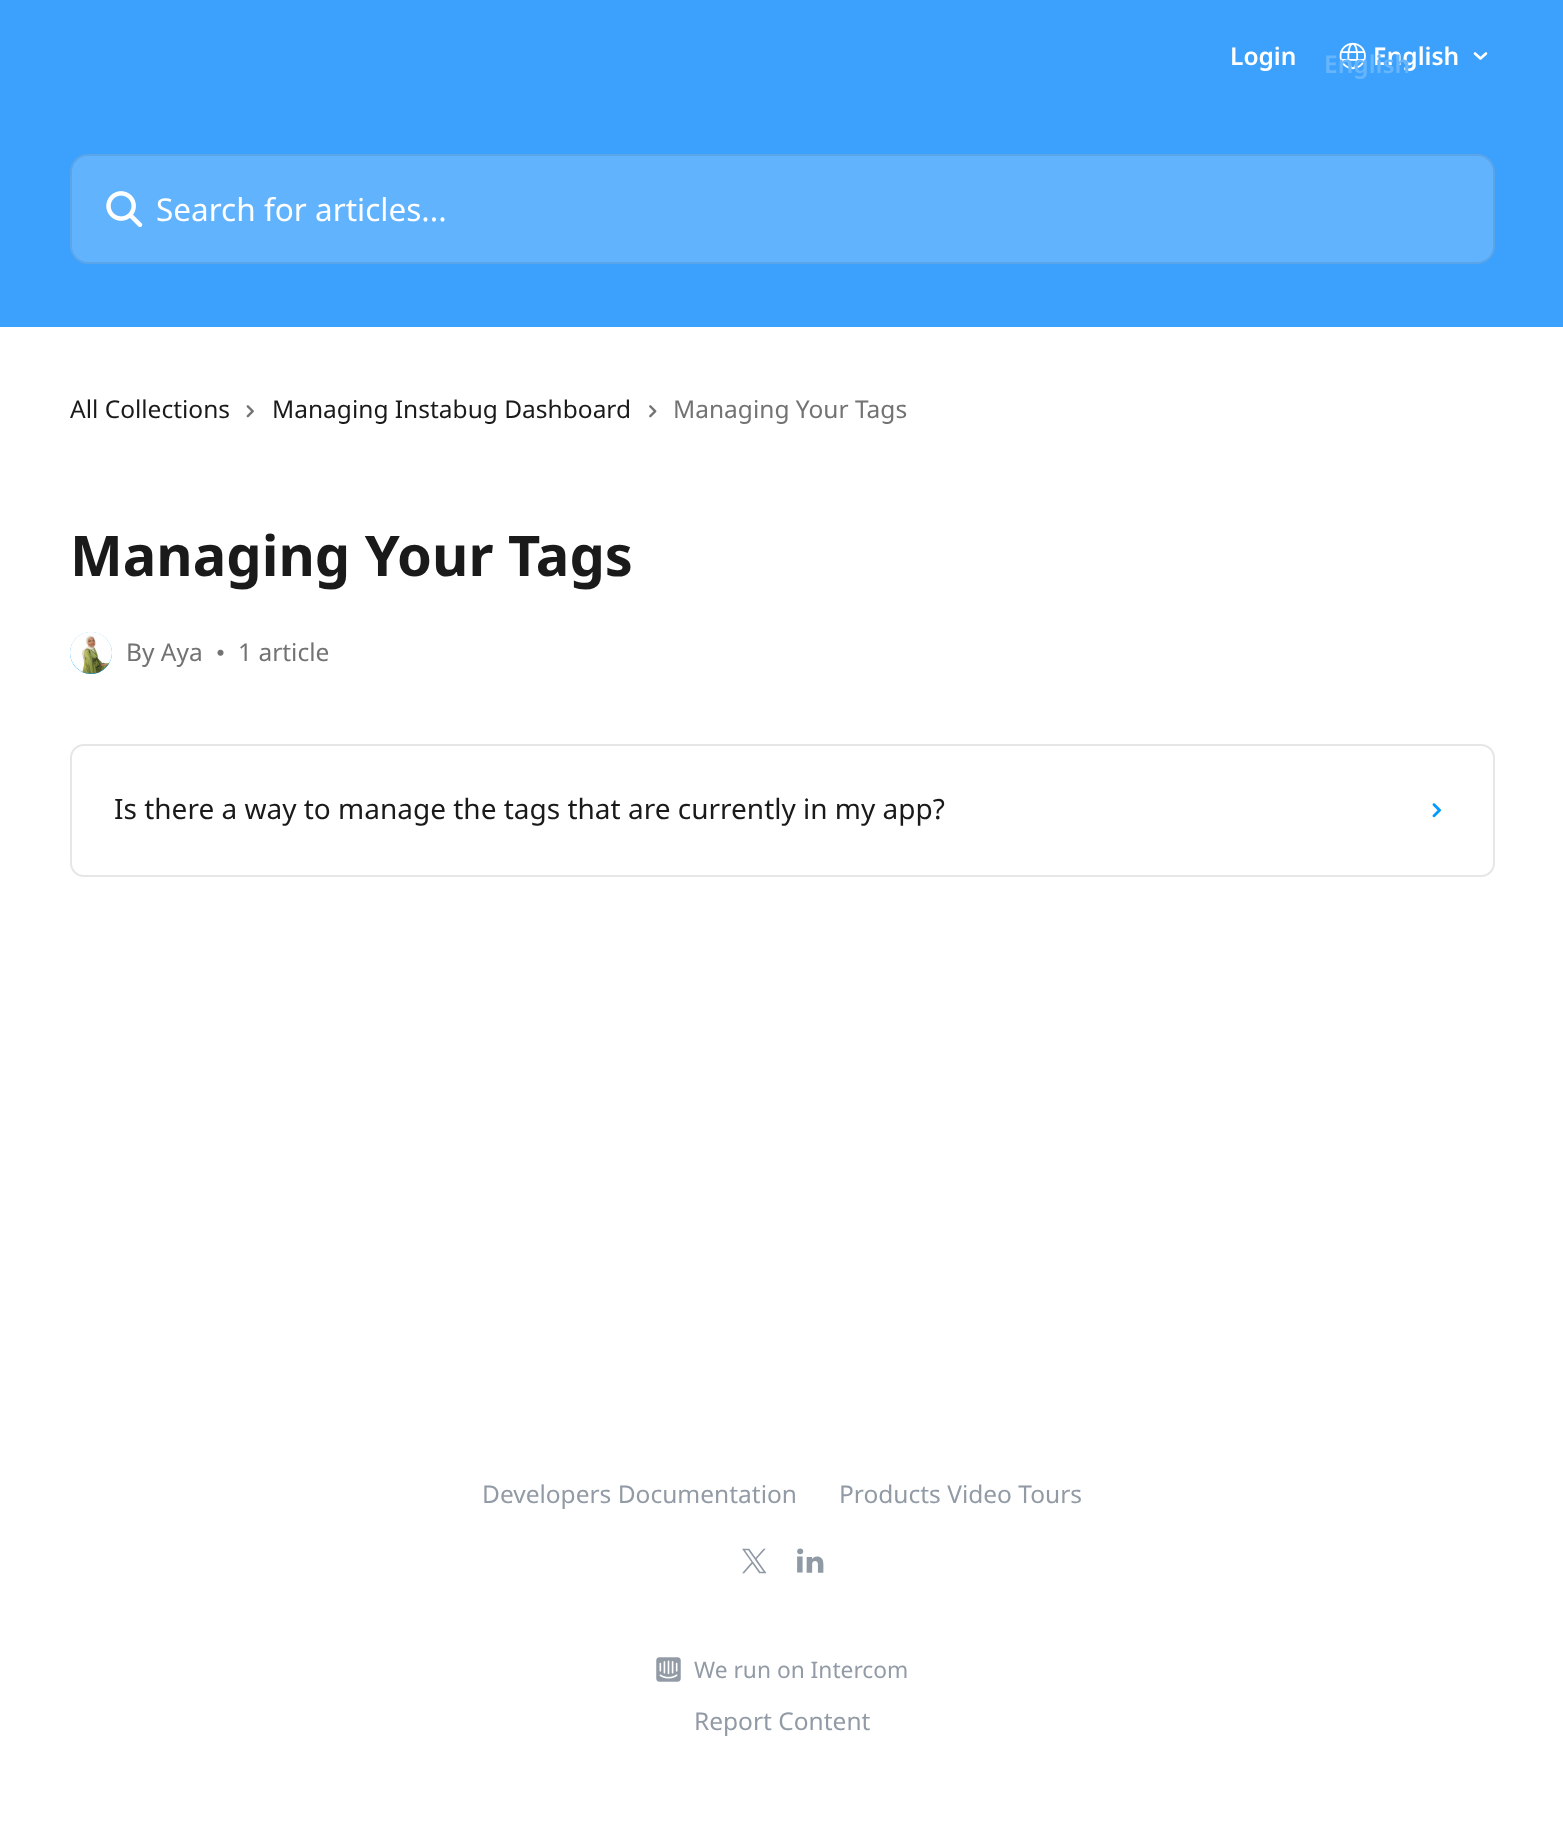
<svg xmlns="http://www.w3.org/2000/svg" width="1563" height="1824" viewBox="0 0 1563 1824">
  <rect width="100%" height="100%" fill="#ffffff"/>
  <rect x="0" y="0" width="1563" height="327" fill="#3ba1fd"/>
  <text x="1230" y="65" font-family="Noto Sans" font-size="24.5" font-weight="600" fill="#ffffff">Login</text>
  <image x="1339" y="42" width="27" height="28" href="img1.png"/>
  <text x="1373" y="65" font-family="Noto Sans" font-size="24.5" font-weight="600" fill="#ffffff">English</text>
  <text x="1324" y="73" font-family="Noto Sans" font-size="24.5" font-weight="600" fill="#66b5fd">English</text>
  <path d="M1475 53.5L1480.5 58.5L1486 53.5" fill="none" stroke="#ffffff" stroke-width="2.6" stroke-linecap="round" stroke-linejoin="round"/>
  <rect x="70" y="154" width="1425" height="110" rx="18" fill="#ffffff" fill-opacity="0.2"/>
  <rect x="71" y="155" width="1423" height="108" rx="17" fill="none" stroke="#000000" stroke-opacity="0.08" stroke-width="2"/>
  <image x="106" y="191" width="37" height="37" href="img2.png"/>
  <text x="156" y="221" font-family="Noto Sans" font-size="31.5" fill="#ffffff">Search for articles...</text>
  <text x="70" y="418" font-family="Noto Sans" font-size="24.5" fill="#1a1a1a">All Collections</text>
  <image x="246" y="405" width="8" height="13" href="img3.png"/>
  <text x="272" y="418" font-family="Noto Sans" font-size="24.5" fill="#1a1a1a">Managing Instabug Dashboard</text>
  <image x="649" y="405" width="8" height="13" href="img4.png"/>
  <text x="673" y="418" font-family="Noto Sans" font-size="24.5" fill="#737373">Managing Your Tags</text>
  <text x="70" y="576" font-family="Noto Sans" font-size="56" font-weight="bold" fill="#1a1a1a">Managing Your Tags</text>
  <circle cx="91" cy="653" r="21" fill="#0099ff"/>
  <image x="70" y="632" width="42" height="42" href="img5.png"/>
  <text x="126" y="661" font-family="Noto Sans" font-size="24.5" fill="#737373">By Aya</text>
  <image x="217" y="649" width="7" height="7" href="img6.png"/>
  <text x="238" y="661" font-family="Noto Sans" font-size="24.5" fill="#737373">1 article</text>
  <rect x="71" y="745" width="1423" height="131" rx="13" fill="none" stroke="#e6e6e6" stroke-width="2"/>
  <text x="114" y="819" font-family="Noto Sans" font-size="28" fill="#1a1a1a">Is there a way to manage the tags that are currently in my app?</text>
  <image x="1432" y="803" width="9" height="15" href="img7.png"/>
  <text x="482" y="1503" font-family="Noto Sans" font-size="24.5" fill="#929ba5">Developers Documentation</text>
  <text x="839" y="1503" font-family="Noto Sans" font-size="24.5" fill="#929ba5">Products Video Tours</text>
  <image x="742" y="1548" width="25" height="26" href="img8.png"/>
  <image x="797" y="1548" width="27" height="25" href="img9.png"/>
  <image x="656" y="1657" width="25" height="25" href="img10.png"/>
  <text x="694" y="1678" font-family="Noto Sans" font-size="22.75" fill="#929ba5">We run on Intercom</text>
  <text x="694" y="1730" font-family="Noto Sans" font-size="24.5" fill="#929ba5">Report Content</text>
</svg>
